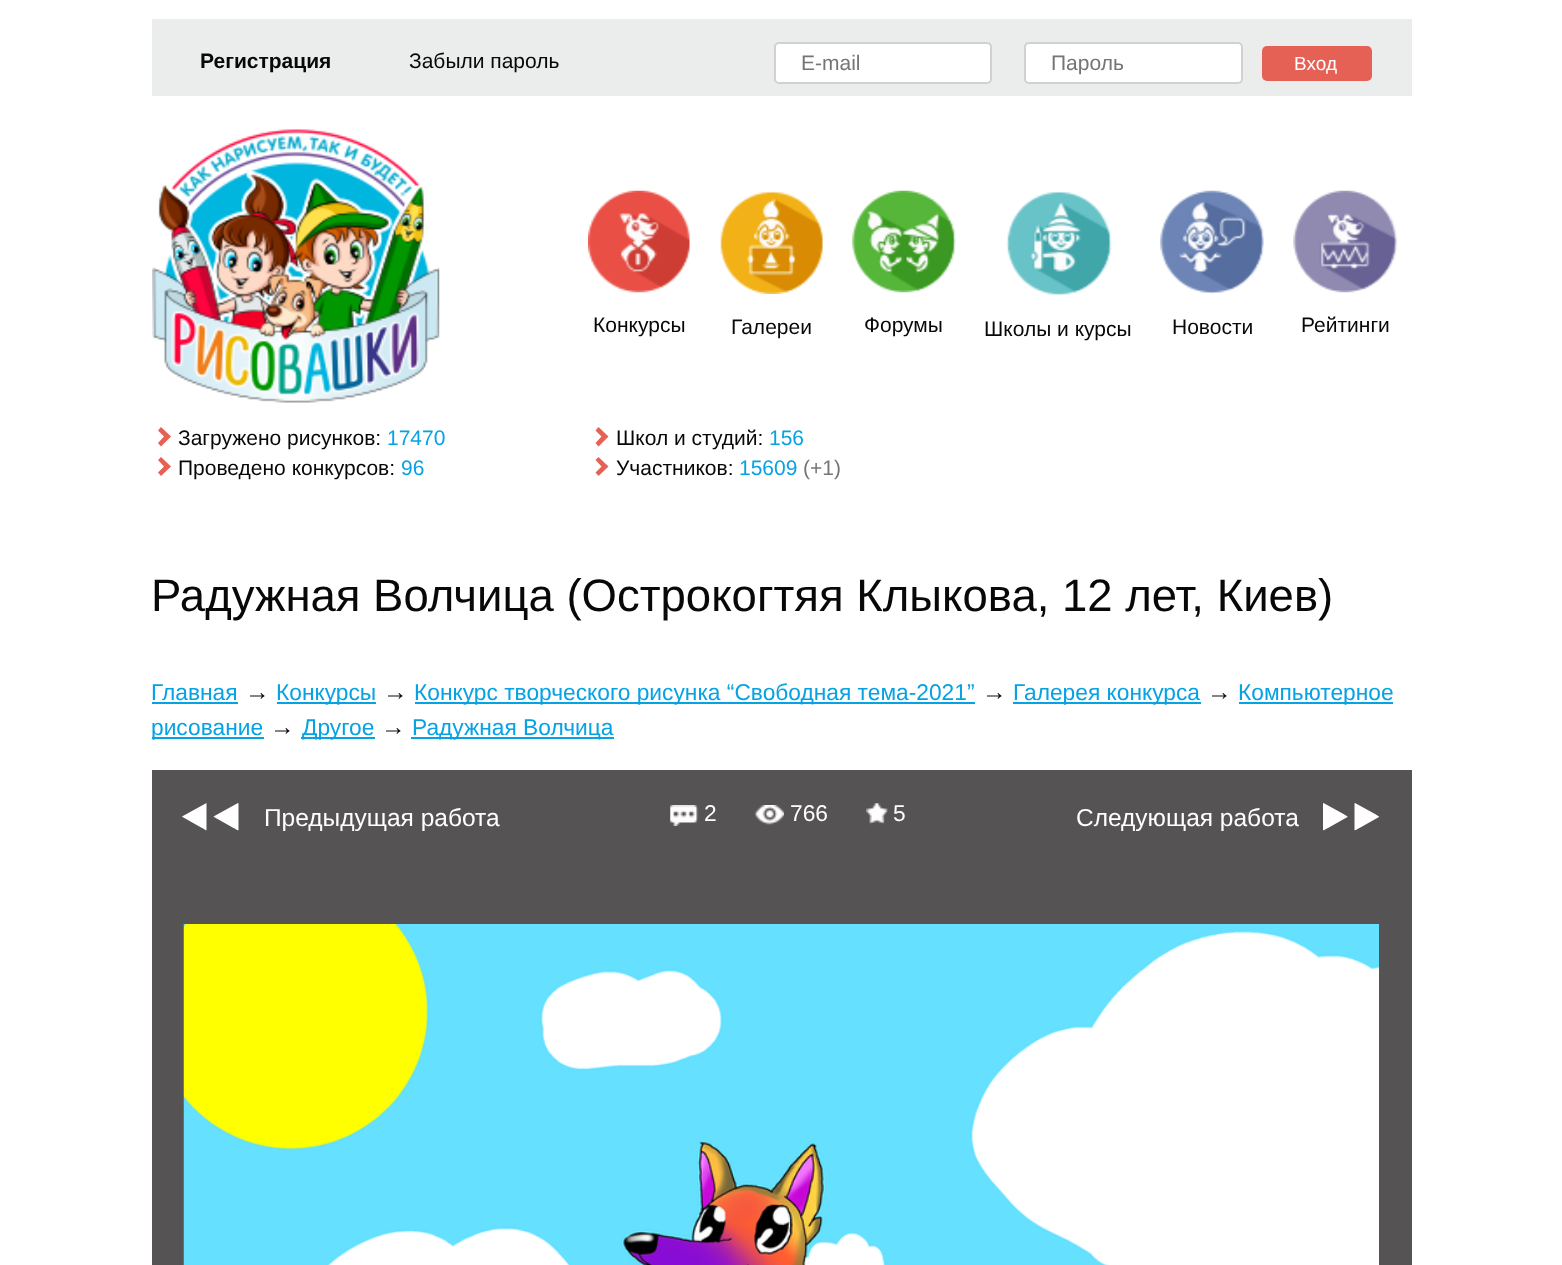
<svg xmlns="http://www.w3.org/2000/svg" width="1562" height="1265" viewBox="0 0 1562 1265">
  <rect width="100%" height="100%" fill="#ffffff"/>
  <rect x="152" y="19" width="1260" height="77" fill="#ebecec"/>
  <text x="200" y="68" font-family="Liberation Sans" font-size="21" font-weight="bold" fill="#080808">Регистрация</text>
  <text x="409" y="68" font-family="Liberation Sans" font-size="21" fill="#080808">Забыли пароль</text>
  <rect x="775" y="43" width="216" height="40" rx="4" fill="#ffffff" stroke="#d2d1d1" stroke-width="2"/>
  <text x="801" y="70" font-family="Liberation Sans" font-size="21" fill="#757575">E-mail</text>
  <rect x="1025" y="43" width="217" height="40" rx="4" fill="#ffffff" stroke="#d2d1d1" stroke-width="2"/>
  <text x="1051" y="70" font-family="Liberation Sans" font-size="21" fill="#757575">Пароль</text>
  <rect x="1262" y="46" width="110" height="35" rx="5" fill="#e66155"/>
  <text x="1294" y="70" font-family="Liberation Sans" font-size="19" fill="#ffffff">Вход</text>
  <image x="152" y="129" width="288" height="274" href="img1.png"/>
  <image x="588" y="190" width="102" height="103" href="img2.png"/>
  <text x="593" y="332" font-family="Liberation Sans" font-size="21" fill="#080808">Конкурсы</text>
  <image x="719" y="191" width="104" height="103" href="img3.png"/>
  <text x="731" y="334" font-family="Liberation Sans" font-size="21" fill="#080808">Галереи</text>
  <image x="852" y="190" width="104" height="103" href="img4.png"/>
  <text x="864" y="332" font-family="Liberation Sans" font-size="21" fill="#080808">Форумы</text>
  <image x="1006" y="191" width="106" height="105" href="img5.png"/>
  <text x="984" y="336" font-family="Liberation Sans" font-size="21" fill="#080808">Школы и курсы</text>
  <image x="1160" y="190" width="104" height="104" href="img6.png"/>
  <text x="1172" y="334" font-family="Liberation Sans" font-size="21" fill="#080808">Новости</text>
  <image x="1293" y="190" width="104" height="103" href="img7.png"/>
  <text x="1301" y="332" font-family="Liberation Sans" font-size="21" fill="#080808">Рейтинги</text>
  <path d="M171 436.5L161 446.5L158 443L164 436.5L158 430.5L161 427ZM171 466.5L161 476L158 472.5L164 466.5L158 460L161 457Z" fill="#e66155"/>
  <text x="178" y="445" font-family="Liberation Sans" font-size="21" fill="#080808">Загружено рисунков:</text>
  <text x="387" y="445" font-family="Liberation Sans" font-size="21" fill="#06a2e4">17470</text>
  <text x="178" y="475" font-family="Liberation Sans" font-size="21" fill="#080808">Проведено конкурсов:</text>
  <text x="401" y="475" font-family="Liberation Sans" font-size="21" fill="#06a2e4">96</text>
  <path d="M608.5 436.5L598.5 446.5L595.5 443L601.5 436.5L595.5 430.5L598.5 427ZM608.5 466.5L598.5 476L595.5 472.5L601.5 466.5L595.5 460L598.5 457Z" fill="#e66155"/>
  <text x="616" y="445" font-family="Liberation Sans" font-size="21" fill="#080808">Школ и студий:</text>
  <text x="769" y="445" font-family="Liberation Sans" font-size="21" fill="#06a2e4">156</text>
  <text x="616" y="475" font-family="Liberation Sans" font-size="21" fill="#080808">Участников:</text>
  <text x="739" y="475" font-family="Liberation Sans" font-size="21" fill="#06a2e4">15609</text>
  <text x="803" y="475" font-family="Liberation Sans" font-size="21" fill="#757575">(+1)</text>
  <text x="151" y="611" font-family="Liberation Sans" font-size="45.5" fill="#080808">Радужная Волчица (Острокогтяя Клыкова, 12 лет, Киев)</text>
  <text x="151" y="700" font-family="Liberation Sans" font-size="22.75" fill="#06a2e4">Главная</text>
  <rect x="152" y="702" width="86" height="2" fill="#06a2e4"/>
  <text x="245" y="700" font-family="Liberation Sans" font-size="24.5" fill="#080808">→</text>
  <rect x="277" y="702" width="99" height="2" fill="#06a2e4"/>
  <text x="276" y="700" font-family="Liberation Sans" font-size="22.75" fill="#06a2e4">Конкурсы</text>
  <text x="383" y="700" font-family="Liberation Sans" font-size="24.5" fill="#080808">→</text>
  <rect x="415" y="702" width="560" height="2" fill="#06a2e4"/>
  <text x="414" y="700" font-family="Liberation Sans" font-size="22.75" fill="#06a2e4">Конкурс творческого рисунка “Свободная тема-2021”</text>
  <text x="982" y="700" font-family="Liberation Sans" font-size="24.5" fill="#080808">→</text>
  <rect x="1013" y="702" width="188" height="2" fill="#06a2e4"/>
  <text x="1013" y="700" font-family="Liberation Sans" font-size="22.75" fill="#06a2e4">Галерея конкурса</text>
  <text x="1207" y="700" font-family="Liberation Sans" font-size="24.5" fill="#080808">→</text>
  <rect x="1239" y="702" width="154" height="2" fill="#06a2e4"/>
  <text x="1238" y="700" font-family="Liberation Sans" font-size="22.75" fill="#06a2e4">Компьютерное</text>
  <rect x="152" y="737" width="112" height="2" fill="#06a2e4"/>
  <text x="151" y="735" font-family="Liberation Sans" font-size="22.75" fill="#06a2e4">рисование</text>
  <text x="270" y="735" font-family="Liberation Sans" font-size="24.5" fill="#080808">→</text>
  <rect x="301" y="737" width="74" height="2" fill="#06a2e4"/>
  <text x="302" y="735" font-family="Liberation Sans" font-size="22.75" fill="#06a2e4">Другое</text>
  <text x="381" y="735" font-family="Liberation Sans" font-size="24.5" fill="#080808">→</text>
  <rect x="411" y="737" width="203" height="2" fill="#06a2e4"/>
  <text x="412" y="735" font-family="Liberation Sans" font-size="22.75" fill="#06a2e4">Радужная Волчица</text>
  <rect x="152" y="770" width="1260" height="495" fill="#555353"/>
  <path d="M182.5 817L202 828C202.5 828 206 831 206.5 830V803.5V803L186.5 814L182 816.5ZM214 817L233.5 828C234 828 237.5 831 238.5 830V803.5L238 803L218 814L213.5 816.5Z" fill="#ffffff"/>
  <text x="264" y="826" font-family="Liberation Sans" font-size="24.5" fill="#ffffff">Предыдущая работа</text>
  <image x="670" y="805" width="29" height="21" href="img8.png"/>
  <text x="704" y="821" font-family="Liberation Sans" font-size="22.75" fill="#ffffff">2</text>
  <image x="754" y="805" width="30" height="20" href="img9.png"/>
  <text x="790" y="821" font-family="Liberation Sans" font-size="22.75" fill="#ffffff">766</text>
  <image x="866" y="803" width="22" height="22" href="img10.png"/>
  <text x="893" y="821" font-family="Liberation Sans" font-size="22.75" fill="#ffffff">5</text>
  <text x="1076" y="826" font-family="Liberation Sans" font-size="24.5" fill="#ffffff">Следующая работа</text>
  <path d="M1347.5 817L1328 828C1327.5 828 1324 831 1323 830V803.5L1323.5 803L1343.5 814L1347.5 816.5ZM1379 817L1359.5 828C1359 828 1355.5 831 1354.5 830V803.5L1355 803L1375 814L1379 816.5Z" fill="#ffffff"/>
  <image x="183" y="924" width="1196" height="341" href="img11.png"/>
</svg>
